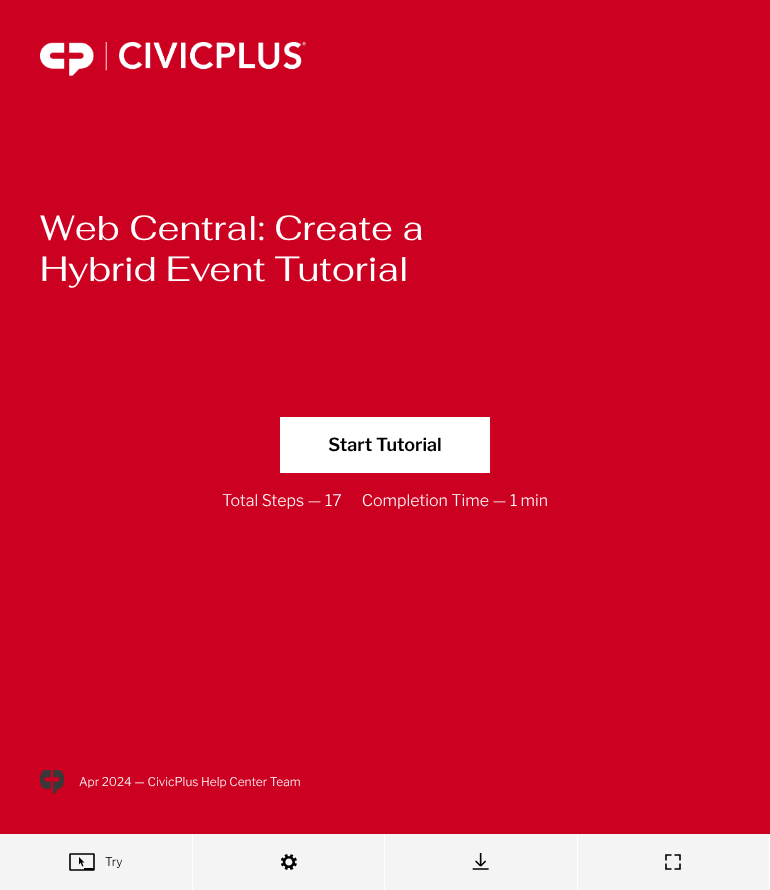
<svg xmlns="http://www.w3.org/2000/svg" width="770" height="890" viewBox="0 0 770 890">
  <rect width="100%" height="100%" fill="#ffffff"/>
  <image x="0" y="0" width="770" height="890" href="img1.png"/>
</svg>
